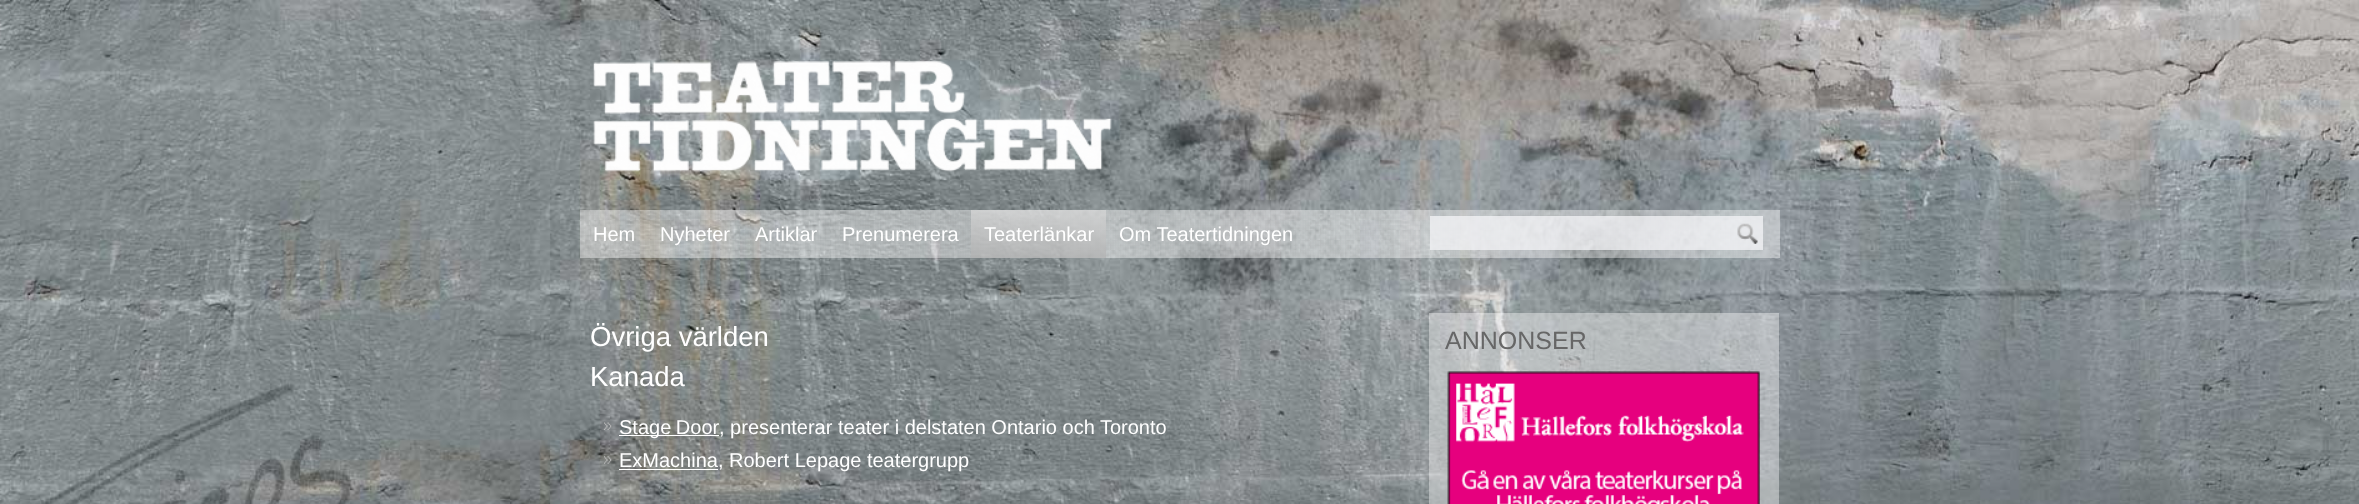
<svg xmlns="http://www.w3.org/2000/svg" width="2359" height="504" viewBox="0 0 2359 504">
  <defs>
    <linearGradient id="g1" gradientUnits="userSpaceOnUse" x1="1039" y1="210" x2="1039" y2="258"><stop offset="0" stop-color="#d9d9d9" stop-opacity="0.7"/><stop offset="1" stop-color="#b0b0b0" stop-opacity="0.7"/></linearGradient>
  </defs>
  <rect width="100%" height="100%" fill="#ffffff"/>
  <image x="0" y="0" width="2359" height="504" href="img1.png"/>
  <image x="593" y="61" width="519" height="111" href="img2.png"/>
  <rect x="580" y="210" width="1200" height="48" fill="#ffffff" fill-opacity="0.4"/>
  <image x="584" y="211" width="1171" height="46" href="img3.png"/>
  <text x="593" y="241" font-family="Liberation Sans" font-size="20" fill="#ffffff">Hem</text>
  <text x="660" y="241" font-family="Liberation Sans" font-size="20" fill="#ffffff">Nyheter</text>
  <text x="755" y="241" font-family="Liberation Sans" font-size="20" fill="#ffffff">Artiklar</text>
  <text x="842" y="241" font-family="Liberation Sans" font-size="20" fill="#ffffff">Prenumerera</text>
  <rect x="971" y="210" width="135" height="48" fill="url(#g1)"/>
  <text x="984" y="241" font-family="Liberation Sans" font-size="20" fill="#ffffff">Teaterlänkar</text>
  <text x="1119" y="241" font-family="Liberation Sans" font-size="20" fill="#ffffff">Om Teatertidningen</text>
  <rect x="1430" y="216" width="333" height="34" fill="#f6f7f9" fill-opacity="0.72"/>
  <image x="1737" y="223" width="21" height="21" href="img4.png"/>
  <text x="590" y="346" font-family="Liberation Sans" font-size="27.5" fill="#ffffff">Övriga världen</text>
  <text x="590" y="386" font-family="Liberation Sans" font-size="27.5" fill="#ffffff">Kanada</text>
  <image x="603" y="422" width="9" height="8" href="img5.png"/>
  <rect x="619" y="435" width="100" height="1" fill="#ffffff"/>
  <text x="619" y="434" word-spacing="-1" font-family="Liberation Sans" font-size="20" fill="#ffffff">Stage Door</text>
  <text x="719" y="434" font-family="Liberation Sans" font-size="20" fill="#ffffff">, presenterar teater i delstaten Ontario och Toronto</text>
  <image x="604" y="456" width="8" height="8" href="img6.png"/>
  <rect x="619" y="469" width="99" height="1" fill="#ffffff"/>
  <text x="619" y="467" font-family="Liberation Sans" font-size="20" fill="#ffffff">ExMachina, Robert Lepage teatergrupp</text>
  <rect x="1429" y="313" width="350" height="191" fill="#ffffff" fill-opacity="0.4"/>
  <text x="1445" y="349" font-family="Liberation Sans" font-size="25" fill="#666666">ANNONSER</text>
  <image x="1447" y="371" width="313" height="133" href="img7.png"/>
</svg>
